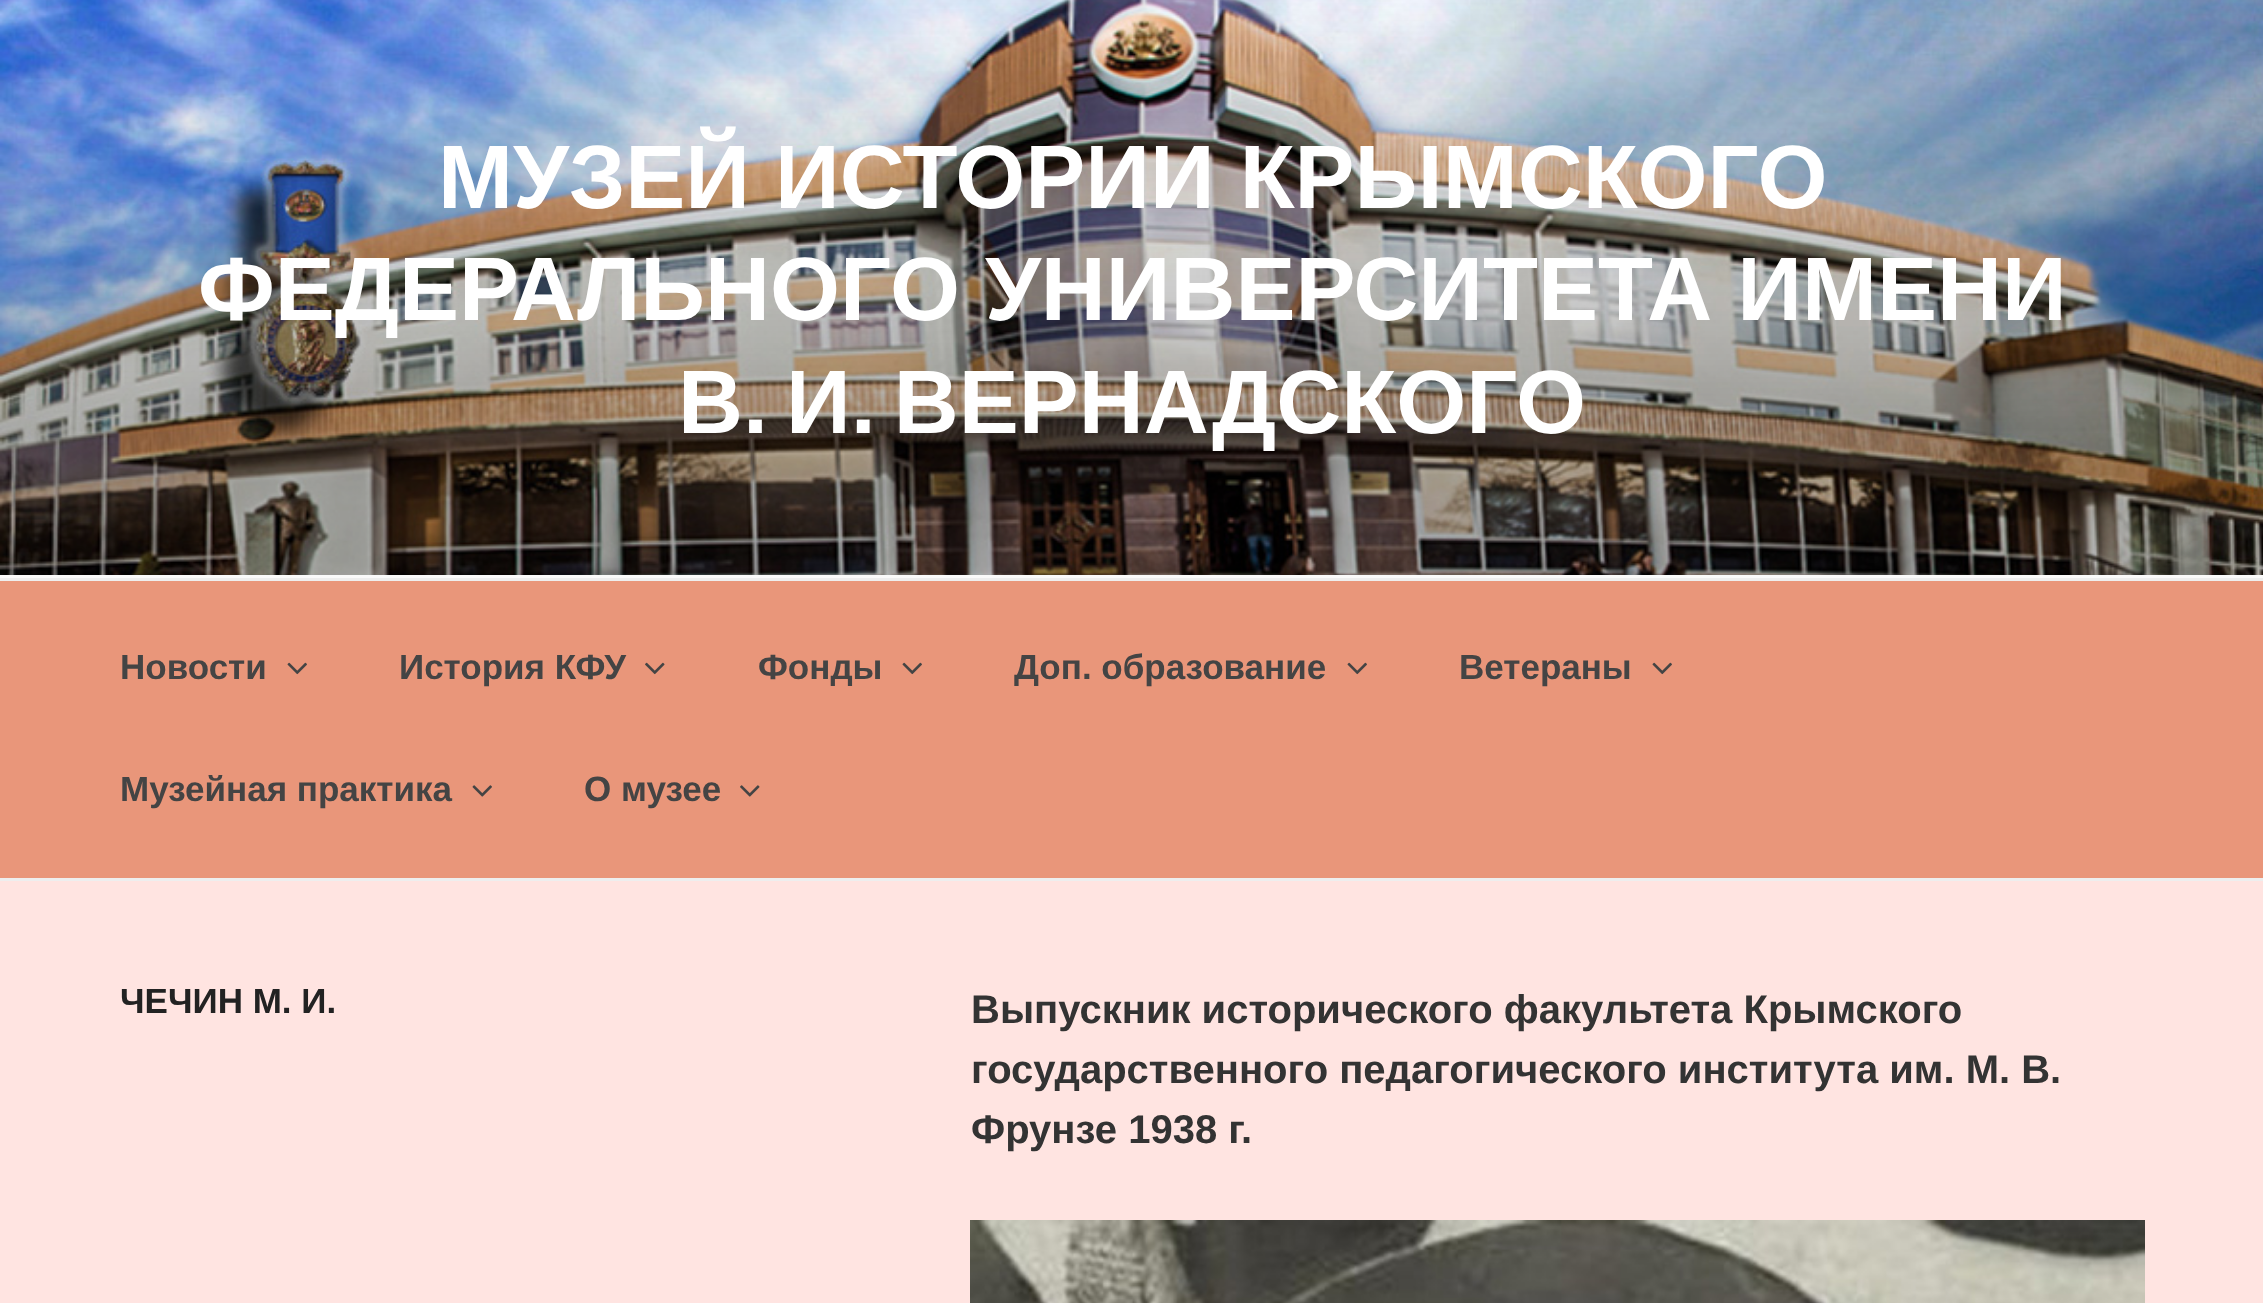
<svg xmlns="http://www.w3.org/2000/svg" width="2263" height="1303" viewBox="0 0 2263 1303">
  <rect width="100%" height="100%" fill="#fafafa"/>
  <image x="0" y="0" width="2263" height="575" href="img1.png"/>
  <text x="438" y="208" font-family="Liberation Sans" font-size="90" font-weight="bold" fill="#ffffff">МУЗЕЙ ИСТОРИИ КРЫМСКОГО</text>
  <text x="198" y="320" font-family="Liberation Sans" font-size="90" font-weight="bold" fill="#ffffff">ФЕДЕРАЛЬНОГО УНИВЕРСИТЕТА ИМЕНИ</text>
  <text x="678" y="433" font-family="Liberation Sans" font-size="90" font-weight="bold" fill="#ffffff">В. И. ВЕРНАДСКОГО</text>
  <rect x="0" y="581" width="2263" height="297" fill="#e9967a"/>
  <rect x="0" y="578" width="2263" height="3" fill="#eeeeee"/>
  <rect x="0" y="878" width="2263" height="3" fill="#eeeeee"/>
  <text x="120" y="679" font-family="Liberation Sans" font-size="35" font-weight="bold" fill="#444444">Новости</text>
  <image x="287" y="662" width="20" height="13" href="img2.png"/>
  <text x="399" y="679" font-family="Liberation Sans" font-size="35" font-weight="bold" fill="#444444">История КФУ</text>
  <image x="645" y="662" width="20" height="13" href="img3.png"/>
  <text x="758" y="679" font-family="Liberation Sans" font-size="35" font-weight="bold" fill="#444444">Фонды</text>
  <image x="902" y="662" width="20" height="13" href="img2.png"/>
  <text x="1014" y="679" font-family="Liberation Sans" font-size="35" font-weight="bold" fill="#444444">Доп. образование</text>
  <image x="1347" y="662" width="20" height="13" href="img2.png"/>
  <text x="1459" y="679" font-family="Liberation Sans" font-size="35" font-weight="bold" fill="#444444">Ветераны</text>
  <image x="1652" y="662" width="20" height="13" href="img2.png"/>
  <text x="120" y="801" font-family="Liberation Sans" font-size="35" font-weight="bold" fill="#444444">Музейная практика</text>
  <image x="472" y="785" width="20" height="12" href="img4.png"/>
  <text x="584" y="801" font-family="Liberation Sans" font-size="35" font-weight="bold" fill="#444444">О музее</text>
  <image x="740" y="785" width="20" height="12" href="img5.png"/>
  <rect x="0" y="881" width="2263" height="422" fill="#ffe4e1"/>
  <text x="120" y="1013" font-family="Liberation Sans" font-size="35" font-weight="bold" fill="#222222">ЧЕЧИН М. И.</text>
  <text x="971" y="1023" font-family="Liberation Sans" font-size="40" font-weight="bold" fill="#333333">Выпускник исторического факультета Крымского</text>
  <text x="971" y="1083" font-family="Liberation Sans" font-size="40" font-weight="bold" fill="#333333">государственного педагогического института им. М. В.</text>
  <text x="971" y="1143" font-family="Liberation Sans" font-size="40" font-weight="bold" fill="#333333">Фрунзе 1938 г.</text>
  <image x="970" y="1220" width="1175" height="83" href="img6.png"/>
</svg>
